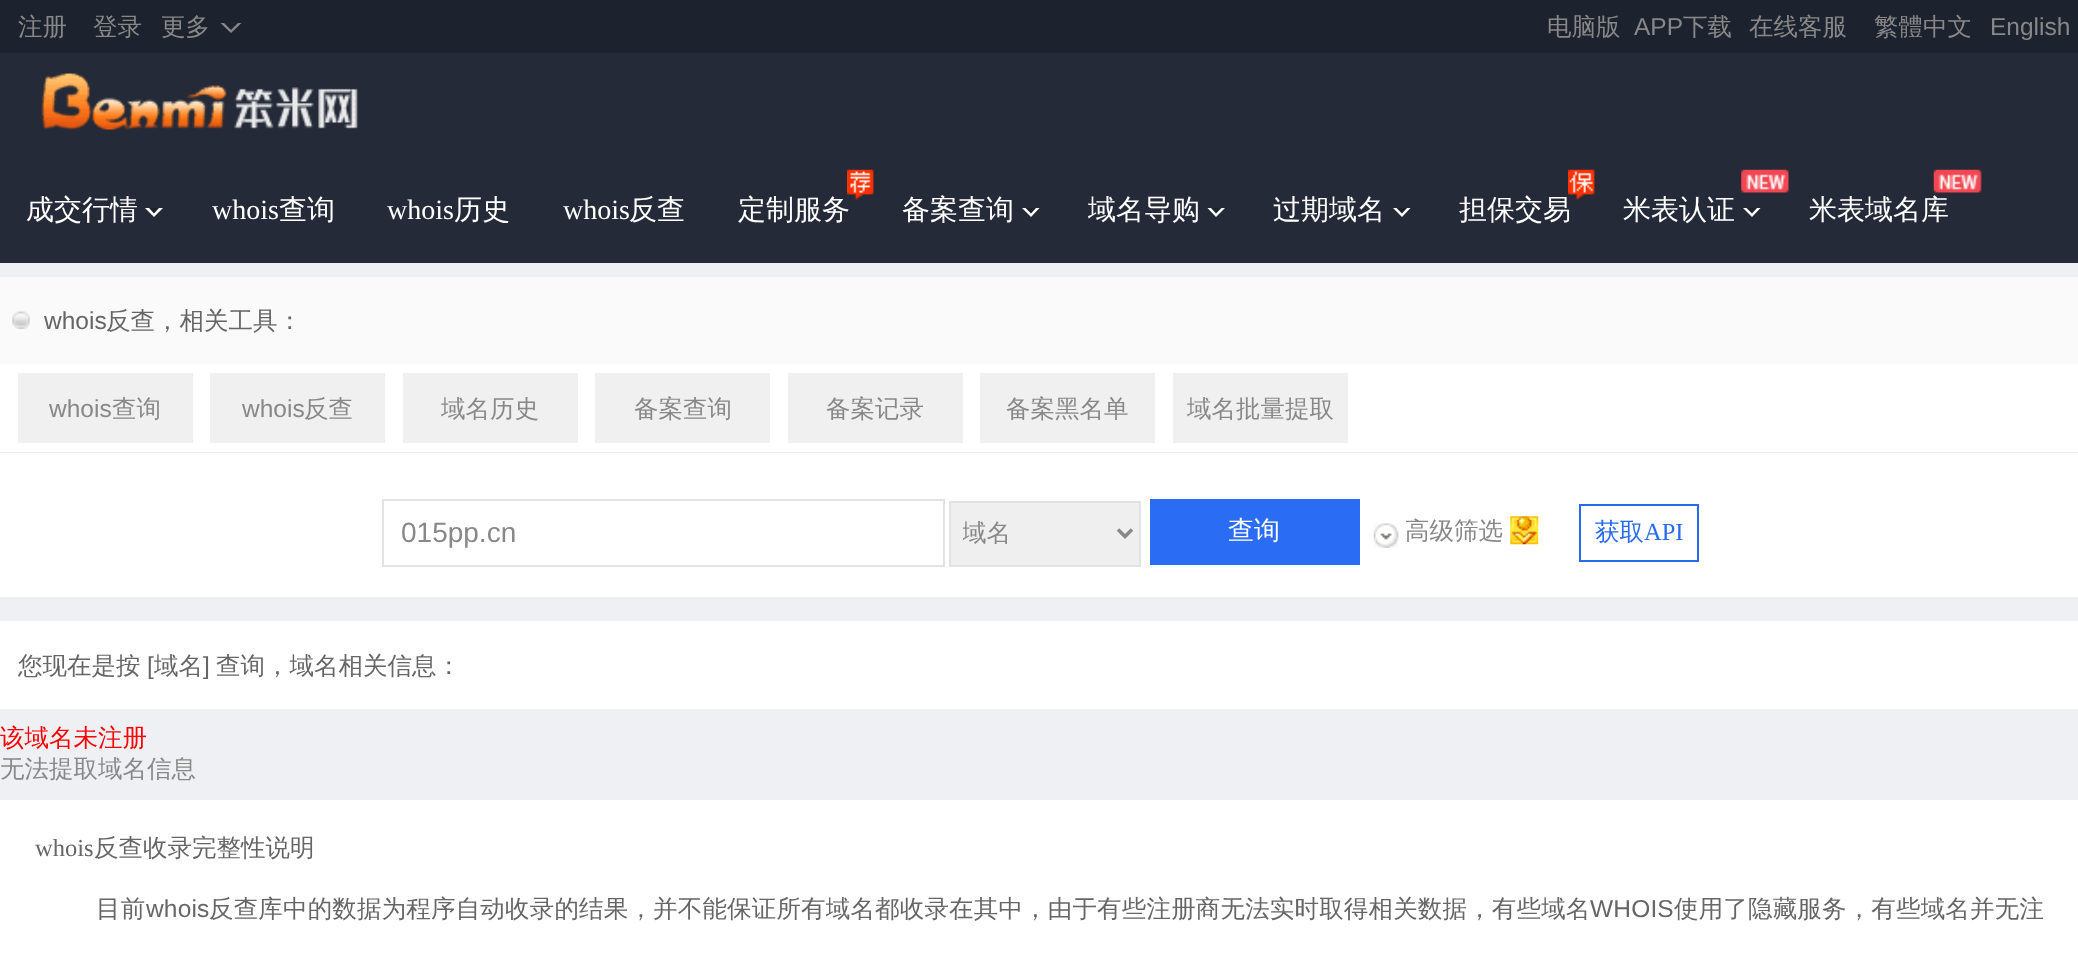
<svg xmlns="http://www.w3.org/2000/svg" width="2078" height="957" viewBox="0 0 2078 957">
  <defs>
    <clipPath id="clip1"><rect x="963" y="518" width="143" height="30"/></clipPath>
  </defs>
  <rect width="100%" height="100%" fill="#eff0f4"/>
  <rect x="0" y="0" width="2078" height="53" fill="#1c222e"/>
  <text x="18" y="35" font-family="WenQuanYi Zen Hei" font-size="24.5" font-weight="500" fill="#888888">注册</text>
  <text x="93" y="35" font-family="WenQuanYi Zen Hei" font-size="24.5" font-weight="500" fill="#888888">登录</text>
  <text x="161" y="35" font-family="WenQuanYi Zen Hei" font-size="24.5" font-weight="500" fill="#888888">更多</text>
  <path d="M220.5 23H241.5L231 33Z" fill="#888888"/>
  <path d="M224 23H238L231 30Z" fill="#1c222e"/>
  <text x="1547" y="35" font-family="WenQuanYi Zen Hei" font-size="24.5" font-weight="500" fill="#888888">电脑版</text>
  <text x="1634" y="35" font-family="Liberation Sans" font-size="24.5" fill="#888888">APP</text>
  <text x="1683" y="35" font-family="WenQuanYi Zen Hei" font-size="24.5" font-weight="500" fill="#888888">下载</text>
  <text x="1749" y="35" font-family="WenQuanYi Zen Hei" font-size="24.5" font-weight="500" fill="#888888">在线客服</text>
  <text x="1874" y="35" font-family="WenQuanYi Zen Hei" font-size="24.5" font-weight="500" fill="#888888">繁體中文</text>
  <text x="1990" y="35" font-family="Liberation Sans" font-size="24.5" fill="#888888">English</text>
  <rect x="0" y="53" width="2078" height="210" fill="#242a37"/>
  <image x="41" y="73" width="317" height="57" href="img1.png"/>
  <text x="26" y="219" font-family="WenQuanYi Zen Hei" font-size="28" font-weight="500" fill="#ffffff">成交行情</text>
  <path d="M145 208H163L154 217Z" fill="#ffffff"/>
  <path d="M149 208H159L154 213.5Z" fill="#1c222e"/>
  <text x="212" y="219" font-family="Liberation Serif" font-size="28" fill="#ffffff">whois</text>
  <text x="279" y="219" font-family="WenQuanYi Zen Hei" font-size="28" font-weight="500" fill="#ffffff">查询</text>
  <text x="387" y="219" font-family="Liberation Serif" font-size="28" fill="#ffffff">whois</text>
  <text x="454" y="219" font-family="WenQuanYi Zen Hei" font-size="28" font-weight="500" fill="#ffffff">历史</text>
  <text x="563" y="219" font-family="Liberation Serif" font-size="28" fill="#ffffff">whois</text>
  <text x="629" y="219" font-family="WenQuanYi Zen Hei" font-size="28" font-weight="500" fill="#ffffff">反查</text>
  <text x="738" y="219" font-family="WenQuanYi Zen Hei" font-size="28" font-weight="500" fill="#ffffff">定制服务</text>
  <image x="847" y="169" width="27" height="31" href="img2.png"/>
  <text x="902" y="219" font-family="WenQuanYi Zen Hei" font-size="28" font-weight="500" fill="#ffffff">备案查询</text>
  <path d="M1022 208H1039.5L1031 217Z" fill="#ffffff"/>
  <path d="M1025.5 208H1036L1031 213.5Z" fill="#1c222e"/>
  <text x="1088" y="219" font-family="WenQuanYi Zen Hei" font-size="28" font-weight="500" fill="#ffffff">域名导购</text>
  <path d="M1207.5 208H1225L1216 217Z" fill="#ffffff"/>
  <path d="M1211 208H1221.5L1216 213.5Z" fill="#1c222e"/>
  <text x="1273" y="219" font-family="WenQuanYi Zen Hei" font-size="28" font-weight="500" fill="#ffffff">过期域名</text>
  <path d="M1393 208H1410.5L1402 217Z" fill="#ffffff"/>
  <path d="M1396.5 208H1407L1402 213.5Z" fill="#1c222e"/>
  <text x="1459" y="219" font-family="WenQuanYi Zen Hei" font-size="28" font-weight="500" fill="#ffffff">担保交易</text>
  <image x="1568" y="169" width="27" height="31" href="img3.png"/>
  <image x="1741" y="169" width="48" height="24" href="img4.png"/>
  <text x="1623" y="219" font-family="WenQuanYi Zen Hei" font-size="28" font-weight="500" fill="#ffffff">米表认证</text>
  <path d="M1743 208H1760.5L1752 217Z" fill="#ffffff"/>
  <path d="M1746.5 208H1757L1752 213.5Z" fill="#1c222e"/>
  <image x="1933" y="169" width="49" height="24" href="img5.png"/>
  <text x="1809" y="219" font-family="WenQuanYi Zen Hei" font-size="28" font-weight="500" fill="#ffffff">米表域名库</text>
  <rect x="0" y="277" width="2078" height="87" fill="#fafafa"/>
  <image x="12" y="311" width="18" height="18" href="img6.png"/>
  <text x="44" y="329" font-family="Liberation Sans" font-size="24.5" fill="#666666">whois</text>
  <text x="106" y="329" font-family="WenQuanYi Zen Hei" font-size="24.5" font-weight="500" fill="#666666">反查，相关工具：</text>
  <rect x="0" y="364" width="2078" height="88" fill="#ffffff"/>
  <rect x="0" y="452" width="2078" height="1" fill="#eeeeee"/>
  <rect x="18" y="373" width="175" height="70" fill="#f0f0f0"/>
  <text x="49" y="417" font-family="Liberation Sans" font-size="24.5" fill="#888888">whois</text>
  <text x="112" y="417" font-family="WenQuanYi Zen Hei" font-size="24.5" font-weight="500" fill="#888888">查询</text>
  <rect x="210" y="373" width="175" height="70" fill="#f0f0f0"/>
  <text x="242" y="417" font-family="Liberation Sans" font-size="24.5" fill="#888888">whois</text>
  <text x="304" y="417" font-family="WenQuanYi Zen Hei" font-size="24.5" font-weight="500" fill="#888888">反查</text>
  <rect x="403" y="373" width="175" height="70" fill="#f0f0f0"/>
  <text x="441" y="417" font-family="WenQuanYi Zen Hei" font-size="24.5" font-weight="500" fill="#888888">域名历史</text>
  <rect x="595" y="373" width="175" height="70" fill="#f0f0f0"/>
  <text x="634" y="417" font-family="WenQuanYi Zen Hei" font-size="24.5" font-weight="500" fill="#888888">备案查询</text>
  <rect x="788" y="373" width="175" height="70" fill="#f0f0f0"/>
  <text x="826" y="417" font-family="WenQuanYi Zen Hei" font-size="24.5" font-weight="500" fill="#888888">备案记录</text>
  <rect x="980" y="373" width="175" height="70" fill="#f0f0f0"/>
  <text x="1006" y="417" font-family="WenQuanYi Zen Hei" font-size="24.5" font-weight="500" fill="#888888">备案黑名单</text>
  <rect x="1173" y="373" width="175" height="70" fill="#f0f0f0"/>
  <text x="1187" y="417" font-family="WenQuanYi Zen Hei" font-size="24.5" font-weight="500" fill="#888888">域名批量提取</text>
  <rect x="0" y="453" width="2078" height="144" fill="#ffffff"/>
  <rect x="0" y="597" width="2078" height="2" fill="#eeeeee"/>
  <rect x="383" y="500" width="561" height="66" fill="none" stroke="#e3e3e3" stroke-width="2"/>
  <text x="401" y="542" font-family="Liberation Sans" font-size="28" fill="#888888">015pp.cn</text>
  <rect x="950" y="502" width="190" height="64" fill="#efefef" stroke="#e3e3e3" stroke-width="2"/>
  <path d="M1118 529.5L1125 536.5L1132 529.5" fill="none" stroke="#888888" stroke-width="3.5"/>
  <g clip-path="url(#clip1)">
    <text x="962" y="541" font-family="WenQuanYi Zen Hei" font-size="24.5" font-weight="500" fill="#888888">域名</text>
  </g>
  <rect x="1150" y="499" width="210" height="66" fill="#2b6cf4"/>
  <text x="1228" y="539" font-family="WenQuanYi Zen Hei" font-size="26" font-weight="500" fill="#ffffff">查询</text>
  <image x="1373" y="523" width="26" height="25" href="img7.png"/>
  <text x="1405" y="539" font-family="WenQuanYi Zen Hei" font-size="24.5" font-weight="500" fill="#888888">高级筛选</text>
  <image x="1510" y="516" width="29" height="29" href="img8.png"/>
  <rect x="1580" y="505" width="118" height="56" fill="none" stroke="#296af2" stroke-width="2"/>
  <text x="1595" y="540" font-family="WenQuanYi Zen Hei" font-size="24.5" font-weight="500" fill="#296af2">获取</text>
  <text x="1644" y="540" font-family="Liberation Serif" font-size="24.5" fill="#296af2">API</text>
  <rect x="0" y="621" width="2078" height="88" fill="#ffffff"/>
  <text x="18" y="674" font-family="WenQuanYi Zen Hei" font-size="24.5" font-weight="500" fill="#666666">您现在是按</text>
  <text x="147" y="674" font-family="Liberation Sans" font-size="24.5" fill="#666666">[</text>
  <text x="154" y="674" font-family="WenQuanYi Zen Hei" font-size="24.5" font-weight="500" fill="#666666">域名</text>
  <text x="203" y="674" font-family="Liberation Sans" font-size="24.5" fill="#666666">]</text>
  <text x="216" y="674" font-family="WenQuanYi Zen Hei" font-size="24.5" font-weight="500" fill="#666666">查询，域名相关信息：</text>
  <text x="0" y="746" font-family="WenQuanYi Zen Hei" font-size="24.5" font-weight="500" fill="#ff0000">该域名未注册</text>
  <text x="0" y="777" font-family="WenQuanYi Zen Hei" font-size="24.5" font-weight="500" fill="#888888">无法提取域名信息</text>
  <rect x="0" y="800" width="2078" height="157" fill="#ffffff"/>
  <text x="35" y="856" font-family="Liberation Serif" font-size="24.5" fill="#666666">whois</text>
  <text x="94" y="856" font-family="WenQuanYi Zen Hei" font-size="24.5" font-weight="500" fill="#666666">反查收录完整性说明</text>
  <text x="96" y="917" font-family="WenQuanYi Zen Hei" font-size="24.5" font-weight="500" letter-spacing="0.17" fill="#666666">目前</text>
  <text x="146" y="917" font-family="Liberation Sans" font-size="24.5" letter-spacing="0.17" fill="#666666">whois</text>
  <text x="209" y="917" font-family="WenQuanYi Zen Hei" font-size="24.5" font-weight="500" letter-spacing="0.17" fill="#666666">反查库中的数据为程序自动收录的结果，并不能保证所有域名都收录在其中，由于有些注册商无法实时取得相关数据，有些域名</text>
  <text x="1590" y="917" font-family="Liberation Sans" font-size="24.5" letter-spacing="0.17" fill="#666666">WHOIS</text>
  <text x="1674" y="917" font-family="WenQuanYi Zen Hei" font-size="24.5" font-weight="500" letter-spacing="0.17" fill="#666666">使用了隐藏服务，有些域名并无注</text>
</svg>
